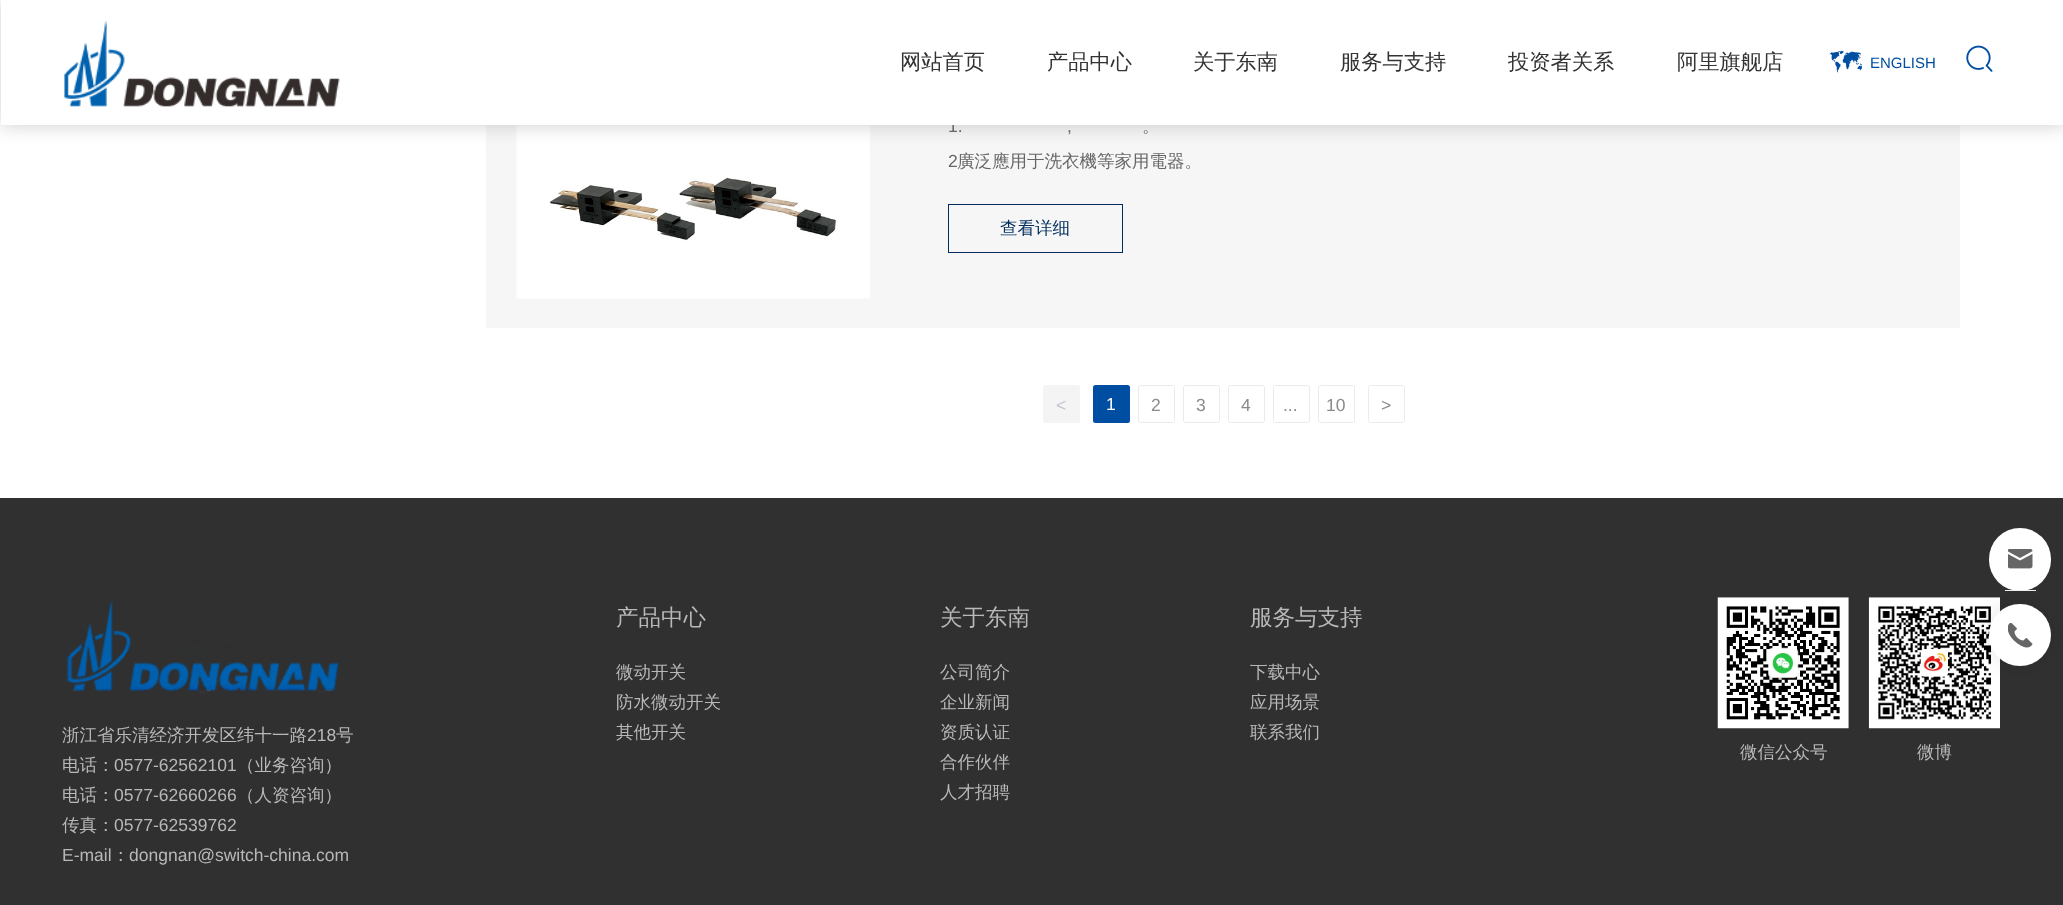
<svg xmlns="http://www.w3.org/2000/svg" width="2063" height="905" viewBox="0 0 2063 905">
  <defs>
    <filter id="blur1" x="-50%" y="-200%" width="200%" height="500%"><feGaussianBlur stdDeviation="9.5"/></filter>
  </defs>
  <rect width="100%" height="100%" fill="#ffffff"/>
  <rect x="486" y="125" width="1474" height="203" fill="#f6f6f6"/>
  <image x="516" y="125" width="354" height="174" href="img4.png"/>
  <rect x="1" y="0" width="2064" height="125" fill="#000000" fill-opacity="0.2" filter="url(#blur1)"/>
  <text x="948" y="132" font-family="Liberation Sans" font-size="17.5" fill="#666666">1.</text>
  <rect x="1" y="0" width="2062" height="125" fill="#ffffff"/>
  <image x="64" y="20" width="276" height="87" href="img1.png"/>
  <text x="900" y="69" font-family="WenQuanYi Zen Hei" font-size="21.25" font-weight="500" fill="#333333">网站首页</text>
  <text x="1047" y="69" font-family="WenQuanYi Zen Hei" font-size="21.25" font-weight="500" fill="#333333">产品中心</text>
  <text x="1193" y="69" font-family="WenQuanYi Zen Hei" font-size="21.25" font-weight="500" fill="#333333">关于东南</text>
  <text x="1340" y="69" font-family="WenQuanYi Zen Hei" font-size="21.25" font-weight="500" fill="#333333">服务与支持</text>
  <text x="1508" y="69" font-family="WenQuanYi Zen Hei" font-size="21.25" font-weight="500" fill="#333333">投资者关系</text>
  <text x="1677" y="69" font-family="WenQuanYi Zen Hei" font-size="21.25" font-weight="500" fill="#333333">阿里旗舰店</text>
  <image x="1829" y="51" width="33" height="22" href="img2.png"/>
  <text x="1870" y="68" font-family="Liberation Sans" font-size="15" fill="#004ea2">ENGLISH</text>
  <image x="1966" y="45" width="27" height="27" href="img3.png"/>
  <text x="1067" y="132" font-family="Liberation Sans" font-size="17.5" fill="#666666">,</text>
  <text x="1142" y="132" font-family="WenQuanYi Zen Hei" font-size="17.5" font-weight="500" fill="#666666">。</text>
  <text x="948" y="167" font-family="Liberation Sans" font-size="17.5" fill="#666666">2</text>
  <text x="957" y="167" font-family="WenQuanYi Zen Hei" font-size="17.5" font-weight="500" fill="#666666">廣泛應用于洗衣機等家用電器。</text>
  <rect x="948.5" y="204.5" width="174" height="48" fill="none" stroke="#002d5c"/>
  <text x="1000" y="234" font-family="WenQuanYi Zen Hei" font-size="17.5" font-weight="500" fill="#002d5c">查看详细</text>
  <rect x="1043" y="385" width="37" height="38" rx="2.5" fill="#f4f4f5"/>
  <text x="1056" y="411" font-family="Liberation Sans" font-size="17.5" fill="#c0c4cc">&lt;</text>
  <rect x="1093" y="385" width="37" height="38" rx="2.5" fill="#004ea2"/>
  <text x="1106" y="410" font-family="Liberation Sans" font-size="17.5" fill="#ffffff">1</text>
  <rect x="1138.5" y="385.5" width="36" height="37" rx="2" fill="none" stroke="#ebebeb"/>
  <text x="1151" y="411" font-family="Liberation Sans" font-size="17.5" fill="#8a8a8a">2</text>
  <rect x="1183.5" y="385.5" width="36" height="37" rx="2" fill="none" stroke="#ebebeb"/>
  <text x="1196" y="411" font-family="Liberation Sans" font-size="17.5" fill="#8a8a8a">3</text>
  <rect x="1228.5" y="385.5" width="36" height="37" rx="2" fill="none" stroke="#ebebeb"/>
  <text x="1241" y="411" font-family="Liberation Sans" font-size="17.5" fill="#8a8a8a">4</text>
  <rect x="1273.5" y="385.5" width="36" height="37" rx="2" fill="none" stroke="#ebebeb"/>
  <text x="1283" y="411" font-family="Liberation Sans" font-size="17.5" fill="#8a8a8a">...</text>
  <rect x="1318.5" y="385.5" width="36" height="37" rx="2" fill="none" stroke="#ebebeb"/>
  <text x="1326" y="411" font-family="Liberation Sans" font-size="17.5" fill="#8a8a8a">10</text>
  <rect x="1368.5" y="385.5" width="36" height="37" rx="2" fill="none" stroke="#ebebeb"/>
  <text x="1381" y="411" font-family="Liberation Sans" font-size="17.5" fill="#8a8a8a">&gt;</text>
  <rect x="0" y="498" width="2063" height="407" fill="#303030"/>
  <image x="66" y="600" width="273" height="94" href="img5.png"/>
  <text x="62" y="741" font-family="WenQuanYi Zen Hei" font-size="17.5" font-weight="500" fill="#b8b8b8">浙江省乐清经济开发区纬十一路</text>
  <text x="307" y="741" font-family="Liberation Sans" font-size="17.5" fill="#b8b8b8">218</text>
  <text x="336" y="741" font-family="WenQuanYi Zen Hei" font-size="17.5" font-weight="500" fill="#b8b8b8">号</text>
  <text x="62" y="771" font-family="WenQuanYi Zen Hei" font-size="17.5" font-weight="500" fill="#b8b8b8">电话：</text>
  <text x="114" y="771" font-family="Liberation Sans" font-size="17.5" fill="#b8b8b8">0577-62562101</text>
  <text x="237" y="771" font-family="WenQuanYi Zen Hei" font-size="17.5" font-weight="500" fill="#b8b8b8">（业务咨询）</text>
  <text x="62" y="801" font-family="WenQuanYi Zen Hei" font-size="17.5" font-weight="500" fill="#b8b8b8">电话：</text>
  <text x="114" y="801" font-family="Liberation Sans" font-size="17.5" fill="#b8b8b8">0577-62660266</text>
  <text x="237" y="801" font-family="WenQuanYi Zen Hei" font-size="17.5" font-weight="500" fill="#b8b8b8">（人资咨询）</text>
  <text x="62" y="831" font-family="WenQuanYi Zen Hei" font-size="17.5" font-weight="500" fill="#b8b8b8">传真：</text>
  <text x="114" y="831" font-family="Liberation Sans" font-size="17.5" fill="#b8b8b8">0577-62539762</text>
  <text x="62" y="861" font-family="Liberation Sans" font-size="17.5" fill="#b8b8b8">E-mail</text>
  <text x="112" y="861" font-family="WenQuanYi Zen Hei" font-size="17.5" font-weight="500" fill="#b8b8b8">：</text>
  <text x="129" y="861" font-family="Liberation Sans" font-size="17.5" fill="#b8b8b8">dongnan@switch-china.com</text>
  <text x="616" y="625" font-family="WenQuanYi Zen Hei" font-size="22.5" font-weight="500" fill="#b8b8b8">产品中心</text>
  <text x="616" y="678" font-family="WenQuanYi Zen Hei" font-size="17.5" font-weight="500" fill="#b8b8b8">微动开关</text>
  <text x="616" y="708" font-family="WenQuanYi Zen Hei" font-size="17.5" font-weight="500" fill="#b8b8b8">防水微动开关</text>
  <text x="616" y="738" font-family="WenQuanYi Zen Hei" font-size="17.5" font-weight="500" fill="#b8b8b8">其他开关</text>
  <text x="940" y="625" font-family="WenQuanYi Zen Hei" font-size="22.5" font-weight="500" fill="#b8b8b8">关于东南</text>
  <text x="940" y="678" font-family="WenQuanYi Zen Hei" font-size="17.5" font-weight="500" fill="#b8b8b8">公司简介</text>
  <text x="940" y="708" font-family="WenQuanYi Zen Hei" font-size="17.5" font-weight="500" fill="#b8b8b8">企业新闻</text>
  <text x="940" y="738" font-family="WenQuanYi Zen Hei" font-size="17.5" font-weight="500" fill="#b8b8b8">资质认证</text>
  <text x="940" y="768" font-family="WenQuanYi Zen Hei" font-size="17.5" font-weight="500" fill="#b8b8b8">合作伙伴</text>
  <text x="940" y="798" font-family="WenQuanYi Zen Hei" font-size="17.5" font-weight="500" fill="#b8b8b8">人才招聘</text>
  <text x="1250" y="625" font-family="WenQuanYi Zen Hei" font-size="22.5" font-weight="500" fill="#b8b8b8">服务与支持</text>
  <text x="1250" y="678" font-family="WenQuanYi Zen Hei" font-size="17.5" font-weight="500" fill="#b8b8b8">下载中心</text>
  <text x="1250" y="708" font-family="WenQuanYi Zen Hei" font-size="17.5" font-weight="500" fill="#b8b8b8">应用场景</text>
  <text x="1250" y="738" font-family="WenQuanYi Zen Hei" font-size="17.5" font-weight="500" fill="#b8b8b8">联系我们</text>
  <image x="1717" y="597" width="132" height="132" href="img6.png"/>
  <text x="1740" y="758" font-family="WenQuanYi Zen Hei" font-size="17.5" font-weight="500" fill="#b8b8b8">微信公众号</text>
  <image x="1868" y="597" width="132" height="132" href="img7.png"/>
  <text x="1917" y="758" font-family="WenQuanYi Zen Hei" font-size="17.5" font-weight="500" fill="#b8b8b8">微博</text>
  <rect x="1989" y="528" width="62" height="63" rx="31" fill="#ffffff"/>
  <rect x="2005" y="590" width="31" height="1" fill="#eeeeee"/>
  <image x="2008" y="549" width="25" height="20" href="img8.png"/>
  <rect x="1989" y="604" width="62" height="62" rx="31" fill="#000000" fill-opacity="0.1" filter="url(#blur1)"/>
  <circle cx="2020" cy="635" r="31" fill="#ffffff"/>
  <image x="2008" y="623" width="25" height="25" href="img9.png"/>
</svg>
